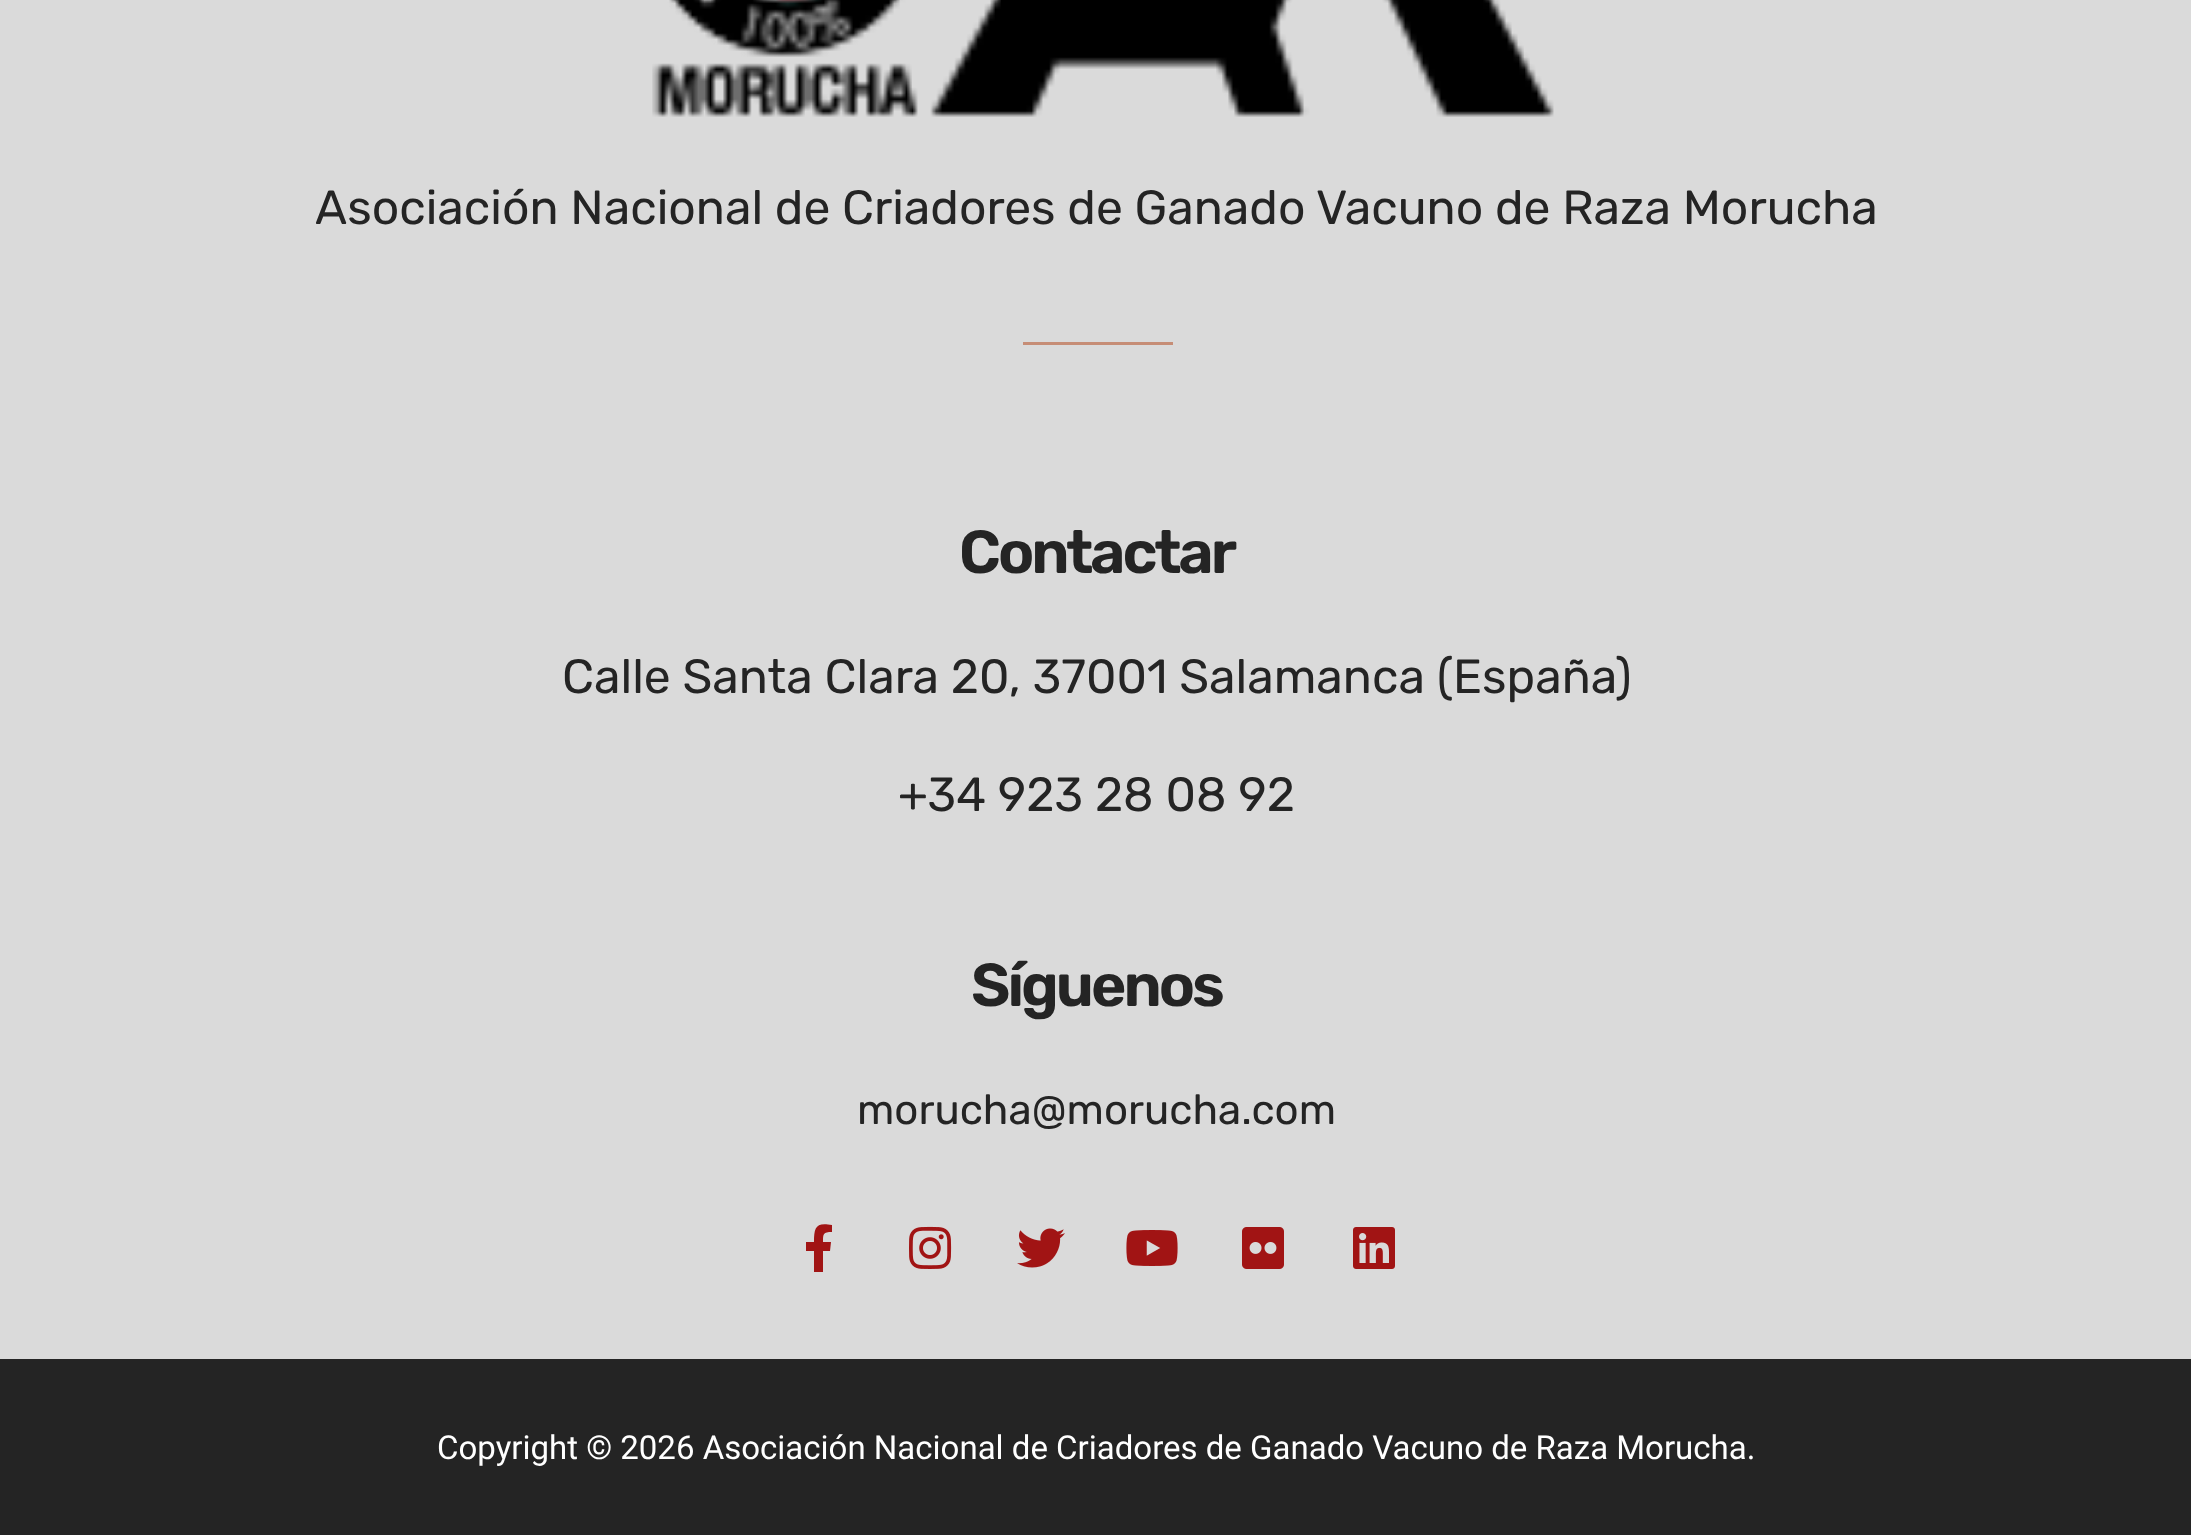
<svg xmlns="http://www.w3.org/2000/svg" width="2191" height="1535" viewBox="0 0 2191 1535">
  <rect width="100%" height="100%" fill="#dadada"/>
  <image x="652" y="0" width="902" height="117" href="img1.png"/>
  <text x="315" y="224" font-family="Rubik" font-size="48" fill="#242424">Asociación Nacional de Criadores de Ganado Vacuno de Raza Morucha</text>
  <rect x="1023" y="342" width="150" height="3" fill="#c68d76"/>
  <text x="959" y="573" font-family="Rubik" font-size="60.5" font-weight="600" letter-spacing="-3" fill="#242424">Contactar</text>
  <text x="562" y="693" font-family="Rubik" font-size="48" fill="#242424">Calle Santa Clara 20, 37001 Salamanca (España)</text>
  <text x="898" y="811" font-family="Rubik" font-size="48" fill="#242424">+34 923 28 08 92</text>
  <text x="971" y="1006" font-family="Rubik" font-size="60.5" font-weight="600" letter-spacing="-3" fill="#242424">Síguenos</text>
  <text x="857" y="1124" font-family="Rubik" font-size="42" fill="#242424">morucha@morucha.com</text>
  <path d="M830 1251H823V1272H814V1251H806V1242H814C814 1227 816 1222 832 1225V1232C823 1232 823 1234 823 1242H831Z" fill="#a11414"/>
  <image x="909" y="1226" width="43" height="43" href="img2.png"/>
  <image x="1017" y="1228" width="48" height="40" href="img3.png"/>
  <image x="1126" y="1230" width="52" height="36" href="img4.png"/>
  <image x="1242" y="1227" width="42" height="42" href="img5.png"/>
  <image x="1353" y="1227" width="42" height="42" href="img6.png"/>
  <rect x="0" y="1359" width="2191" height="176" fill="#242424"/>
  <text x="437" y="1459" font-family="Roboto" font-size="33" fill="#ffffff">Copyright © 2026 Asociación Nacional de Criadores de Ganado Vacuno de Raza Morucha.</text>
</svg>
